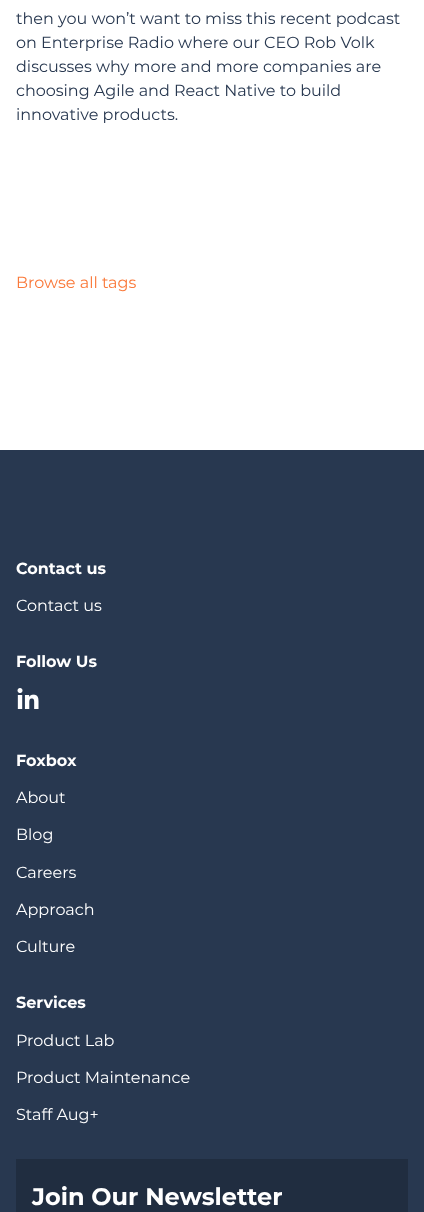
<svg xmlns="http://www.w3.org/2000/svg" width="424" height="1212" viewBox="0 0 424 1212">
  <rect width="100%" height="100%" fill="#283850"/>
  <rect x="0" y="0" width="424" height="450" fill="#ffffff"/>
  <text x="16" y="24" font-family="Montserrat" font-size="16" fill="#283850">then you won’t want to miss this recent podcast</text>
  <text x="16" y="48" font-family="Montserrat" font-size="16" fill="#283850">on Enterprise Radio where our CEO Rob Volk</text>
  <text x="16" y="72" font-family="Montserrat" font-size="16" fill="#283850">discusses why more and more companies are</text>
  <text x="16" y="96" font-family="Montserrat" font-size="16" fill="#283850">choosing Agile and React Native to build</text>
  <text x="16" y="120" font-family="Montserrat" font-size="16" fill="#283850">innovative products.</text>
  <text x="16" y="288" font-family="Montserrat" font-size="16" fill="#fa793a">Browse all tags</text>
  <text x="16" y="574" font-family="Montserrat" font-size="16" font-weight="bold" fill="#ffffff">Contact us</text>
  <text x="16" y="611" font-family="Montserrat" font-size="16" fill="#ffffff">Contact us</text>
  <text x="16" y="667" font-family="Montserrat" font-size="16" font-weight="bold" fill="#ffffff">Follow Us</text>
  <image x="17" y="688" width="22" height="21" href="img1.png"/>
  <text x="16" y="766" font-family="Montserrat" font-size="16" font-weight="bold" fill="#ffffff">Foxbox</text>
  <text x="16" y="803" font-family="Montserrat" font-size="16" fill="#ffffff">About</text>
  <text x="16" y="840" font-family="Montserrat" font-size="16" fill="#ffffff">Blog</text>
  <text x="16" y="878" font-family="Montserrat" font-size="16" fill="#ffffff">Careers</text>
  <text x="16" y="915" font-family="Montserrat" font-size="16" fill="#ffffff">Approach</text>
  <text x="16" y="952" font-family="Montserrat" font-size="16" fill="#ffffff">Culture</text>
  <text x="16" y="1008" font-family="Montserrat" font-size="16" font-weight="bold" fill="#ffffff">Services</text>
  <text x="16" y="1046" font-family="Montserrat" font-size="16" fill="#ffffff">Product Lab</text>
  <text x="16" y="1083" font-family="Montserrat" font-size="16" fill="#ffffff">Product Maintenance</text>
  <text x="16" y="1120" font-family="Montserrat" font-size="16" fill="#ffffff">Staff Aug+</text>
  <rect x="16" y="1159" width="392" height="53" fill="#202d40"/>
  <text x="32" y="1205" font-family="Montserrat" font-size="24" font-weight="bold" fill="#ffffff">Join Our Newsletter</text>
</svg>
